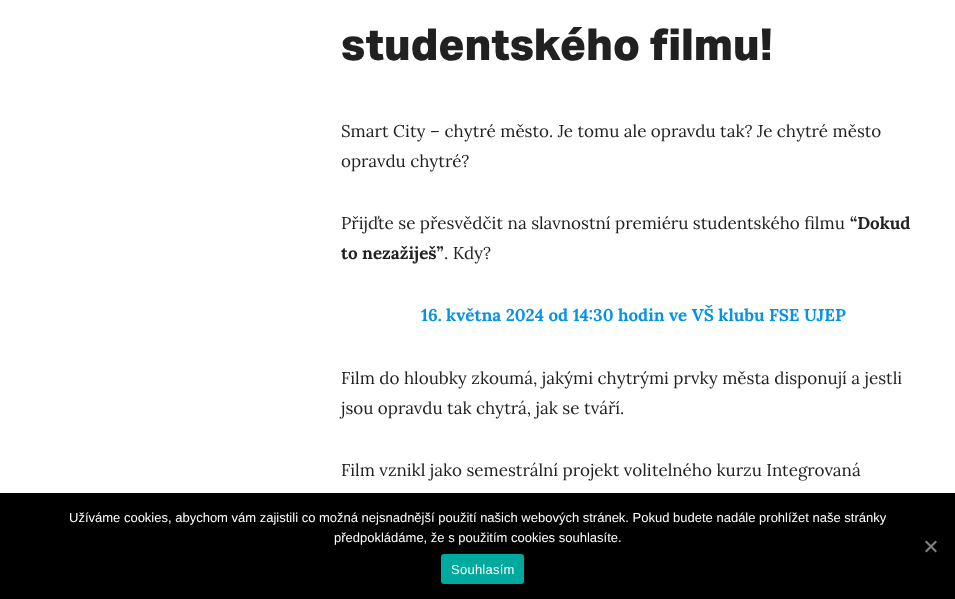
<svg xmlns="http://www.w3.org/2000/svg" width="955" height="599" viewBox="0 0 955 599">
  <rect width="100%" height="100%" fill="#ffffff"/>
  <text x="341" y="60" font-family="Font" font-size="44" font-weight="800" fill="#212121">studentského filmu!</text>
  <text x="341" y="137" font-family="Lora" font-size="17" fill="#212121">Smart City – chytré město. Je tomu ale opravdu tak? Je chytré město</text>
  <text x="341" y="167" font-family="Lora" font-size="17" fill="#212121">opravdu chytré?</text>
  <text x="341" y="229" font-family="Lora" font-size="17" fill="#212121">Přijďte se přesvědčit na slavnostní premiéru studentského filmu</text>
  <text x="850" y="229" font-family="Lora" font-size="17" font-weight="bold" fill="#212121">“Dokud</text>
  <text x="341" y="259" font-family="Lora" font-size="17" font-weight="bold" fill="#212121">to nezažiješ”</text>
  <text x="444" y="259" font-family="Lora" font-size="17" fill="#212121">. Kdy?</text>
  <text x="421" y="321" font-family="Lora" font-size="17" font-weight="bold" fill="#0693e3">16. května 2024 od 14:30 hodin ve VŠ klubu FSE UJEP</text>
  <text x="341" y="384" font-family="Lora" font-size="17" fill="#212121">Film do hloubky zkoumá, jakými chytrými prvky města disponují a jestli</text>
  <text x="341" y="414" font-family="Lora" font-size="17" fill="#212121">jsou opravdu tak chytrá, jak se tváří.</text>
  <text x="341" y="476" font-family="Lora" font-size="17" fill="#212121">Film vznikl jako semestrální projekt volitelného kurzu Integrovaná</text>
  <rect x="0" y="493" width="955" height="106" fill="#000000"/>
  <text x="69" y="522" font-family="Liberation Sans" font-size="13" fill="#ffffff">Užíváme cookies, abychom vám zajistili co možná nejsnadnější použití našich webových stránek. Pokud budete nadále prohlížet naše stránky</text>
  <text x="334" y="542" font-family="Liberation Sans" font-size="13" fill="#ffffff">předpokládáme, že s použitím cookies souhlasíte.</text>
  <path d="M935.5 540.5L937 542L926.5 552.5L925 551Z" fill="#808080"/>
  <path d="M925 542L926.5 540.5L937 551L935.5 552.5Z" fill="#808080"/>
  <rect x="441" y="554" width="83" height="30" rx="3" fill="#00a99d"/>
  <text x="451" y="574" font-family="Liberation Sans" font-size="13" letter-spacing="0.25" fill="#ffffff">Souhlasím</text>
</svg>
